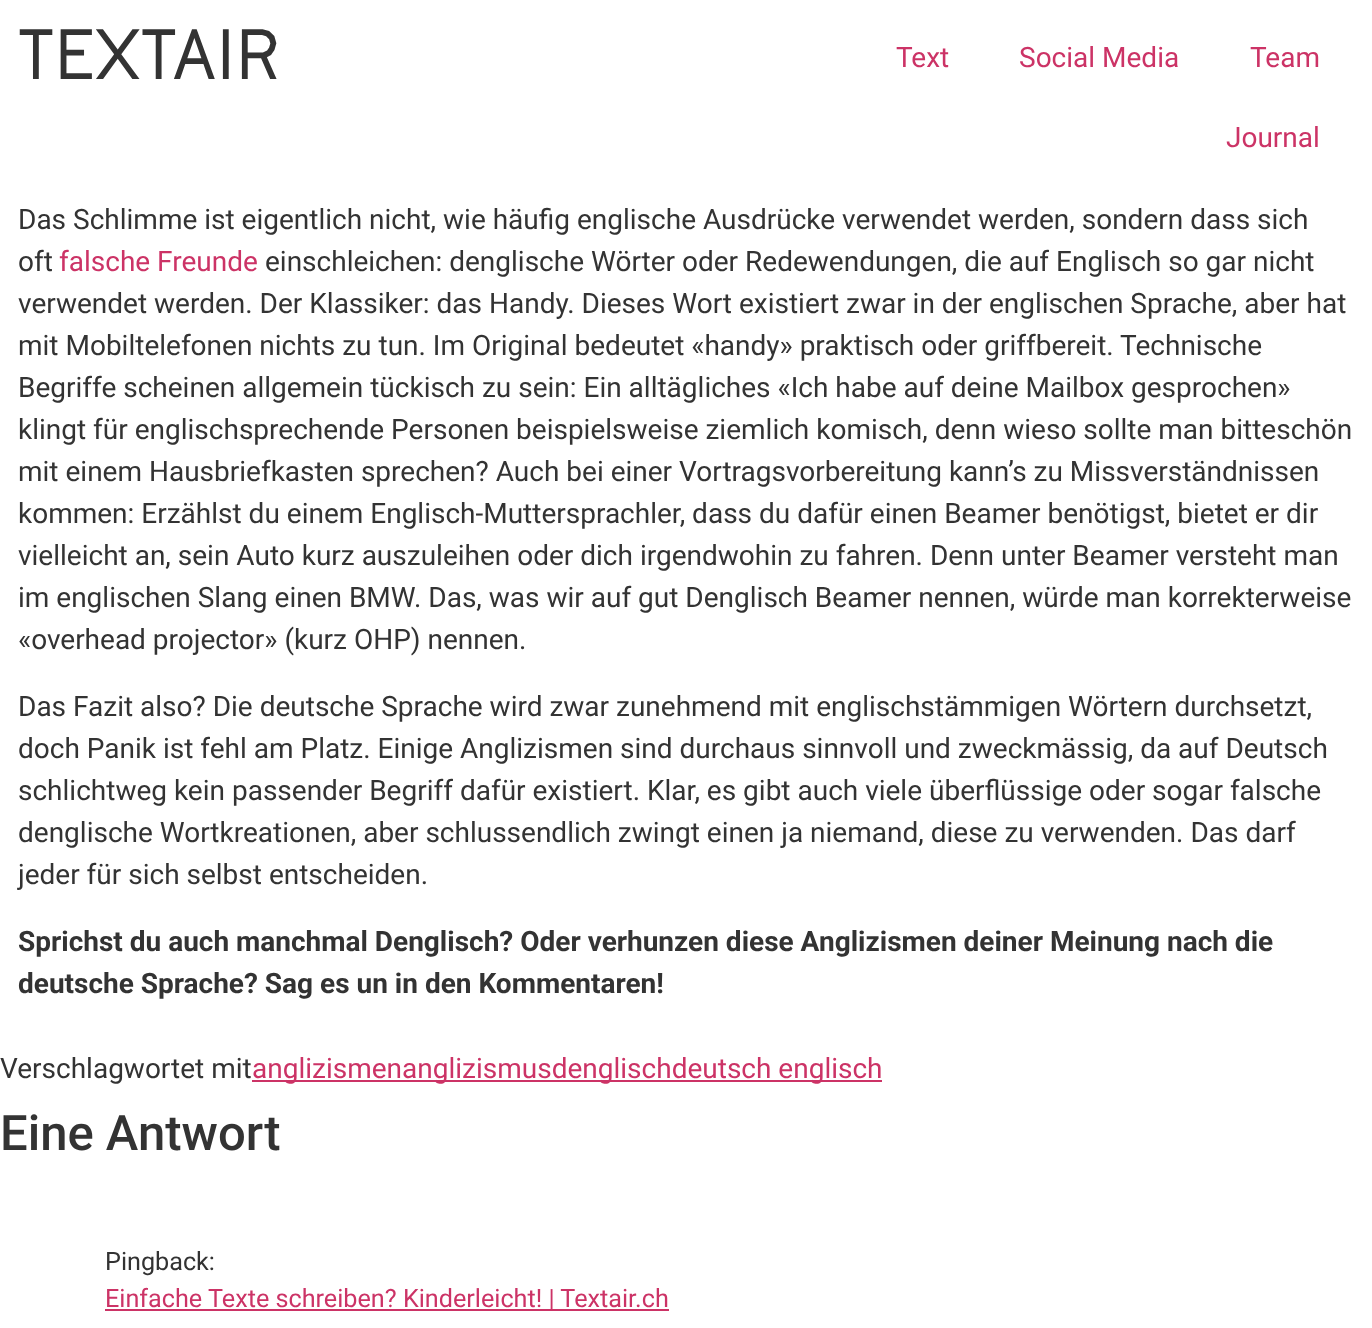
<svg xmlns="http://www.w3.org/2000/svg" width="1372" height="1328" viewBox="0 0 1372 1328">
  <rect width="100%" height="100%" fill="#ffffff"/>
  <text x="18" y="79" font-family="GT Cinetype" font-size="70" fill="#333333">TEXTAIR</text>
  <text x="896" y="67" font-family="Roboto" font-size="28" fill="#cc3366">Text</text>
  <text x="1019" y="67" font-family="Roboto" font-size="28" fill="#cc3366">Social Media</text>
  <text x="1250" y="67" font-family="Roboto" font-size="28" fill="#cc3366">Team</text>
  <text x="1226" y="147" font-family="Roboto" font-size="28" fill="#cc3366">Journal</text>
  <text x="18" y="229" font-family="Roboto" font-size="28" fill="#333333">Das Schlimme ist eigentlich nicht, wie häufig englische Ausdrücke verwendet werden, sondern dass sich</text>
  <text x="18" y="271" font-family="Roboto" font-size="28" fill="#333333">oft</text>
  <text x="59" y="271" font-family="Roboto" font-size="28" fill="#cc3366">falsche Freunde</text>
  <text x="265" y="271" font-family="Roboto" font-size="28" fill="#333333">einschleichen: denglische Wörter oder Redewendungen, die auf Englisch so gar nicht</text>
  <text x="18" y="313" font-family="Roboto" font-size="28" fill="#333333">verwendet werden. Der Klassiker: das Handy. Dieses Wort existiert zwar in der englischen Sprache, aber hat</text>
  <text x="18" y="355" font-family="Roboto" font-size="28" fill="#333333">mit Mobiltelefonen nichts zu tun. Im Original bedeutet «handy» praktisch oder griffbereit. Technische</text>
  <text x="18" y="397" font-family="Roboto" font-size="28" fill="#333333">Begriffe scheinen allgemein tückisch zu sein: Ein alltägliches «Ich habe auf deine Mailbox gesprochen»</text>
  <text x="18" y="439" font-family="Roboto" font-size="28" fill="#333333">klingt für englischsprechende Personen beispielsweise ziemlich komisch, denn wieso sollte man bitteschön</text>
  <text x="18" y="481" font-family="Roboto" font-size="28" fill="#333333">mit einem Hausbriefkasten sprechen? Auch bei einer Vortragsvorbereitung kann’s zu Missverständnissen</text>
  <text x="18" y="523" font-family="Roboto" font-size="28" fill="#333333">kommen: Erzählst du einem Englisch-Muttersprachler, dass du dafür einen Beamer benötigst, bietet er dir</text>
  <text x="18" y="565" font-family="Roboto" font-size="28" fill="#333333">vielleicht an, sein Auto kurz auszuleihen oder dich irgendwohin zu fahren. Denn unter Beamer versteht man</text>
  <text x="18" y="607" font-family="Roboto" font-size="28" fill="#333333">im englischen Slang einen BMW. Das, was wir auf gut Denglisch Beamer nennen, würde man korrekterweise</text>
  <text x="18" y="649" font-family="Roboto" font-size="28" fill="#333333">«overhead projector» (kurz OHP) nennen.</text>
  <text x="18" y="716" font-family="Roboto" font-size="28" fill="#333333">Das Fazit also? Die deutsche Sprache wird zwar zunehmend mit englischstämmigen Wörtern durchsetzt,</text>
  <text x="18" y="758" font-family="Roboto" font-size="28" fill="#333333">doch Panik ist fehl am Platz. Einige Anglizismen sind durchaus sinnvoll und zweckmässig, da auf Deutsch</text>
  <text x="18" y="800" font-family="Roboto" font-size="28" fill="#333333">schlichtweg kein passender Begriff dafür existiert. Klar, es gibt auch viele überflüssige oder sogar falsche</text>
  <text x="18" y="842" font-family="Roboto" font-size="28" fill="#333333">denglische Wortkreationen, aber schlussendlich zwingt einen ja niemand, diese zu verwenden. Das darf</text>
  <text x="18" y="884" font-family="Roboto" font-size="28" fill="#333333">jeder für sich selbst entscheiden.</text>
  <text x="18" y="951" font-family="Roboto" font-size="28" font-weight="bold" fill="#333333">Sprichst du auch manchmal Denglisch? Oder verhunzen diese Anglizismen deiner Meinung nach die</text>
  <text x="18" y="993" font-family="Roboto" font-size="28" font-weight="bold" fill="#333333">deutsche Sprache? Sag es un in den Kommentaren!</text>
  <text x="0" y="1078" font-family="Roboto" font-size="28" fill="#333333">Verschlagwortet mit</text>
  <rect x="252" y="1080" width="630" height="2" fill="#cc3366"/>
  <text x="252" y="1078" font-family="Roboto" font-size="28" fill="#cc3366">anglizismenanglizismusdenglischdeutsch englisch</text>
  <text x="0" y="1150" font-family="Roboto" font-size="49" font-weight="500" fill="#333333">Eine Antwort</text>
  <text x="105" y="1270" font-family="Roboto" font-size="25.2" fill="#333333">Pingback:</text>
  <rect x="105" y="1309" width="564" height="2" fill="#cc3366"/>
  <text x="105" y="1307" font-family="Roboto" font-size="25.2" fill="#cc3366">Einfache Texte schreiben? Kinderleicht! | Textair.ch</text>
</svg>
